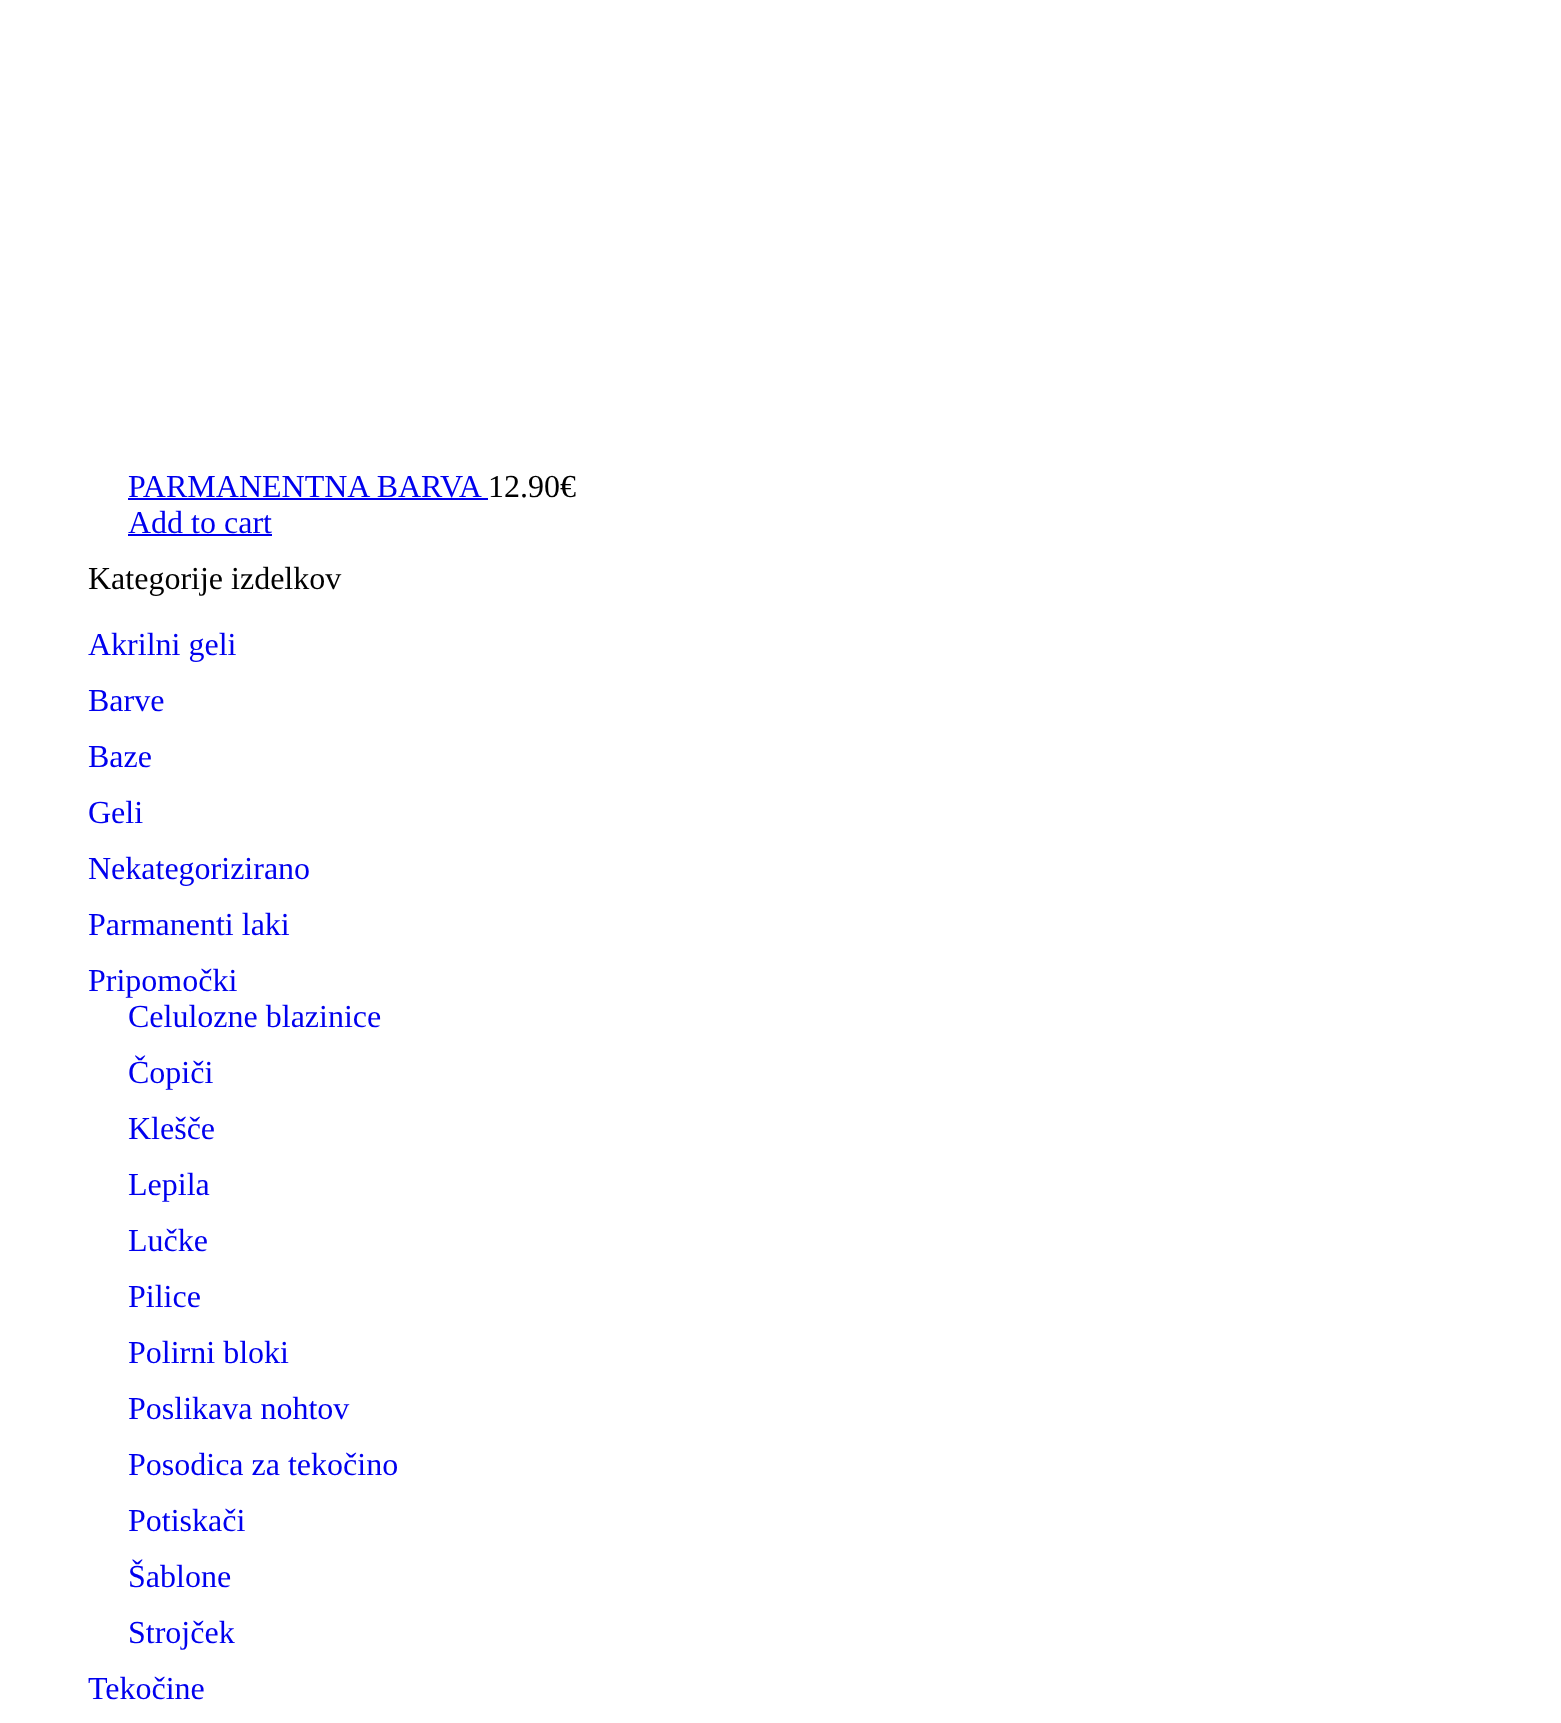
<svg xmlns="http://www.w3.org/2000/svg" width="1561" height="1723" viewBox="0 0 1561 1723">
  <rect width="100%" height="100%" fill="#ffffff"/>
  <text x="128" y="497" font-family="Liberation Serif" font-size="32" fill="#0000ee">PARMANENTNA BARVA</text>
  <rect x="128" y="498" width="360" height="2" fill="#0000ee"/>
  <text x="488" y="497" font-family="Liberation Serif" font-size="32" fill="#000000">12.90€</text>
  <text x="128" y="533" font-family="Liberation Serif" font-size="32" fill="#0000ee">Add to cart</text>
  <rect x="128" y="534" width="144" height="2" fill="#0000ee"/>
  <text x="88" y="589" font-family="Liberation Serif" font-size="32" fill="#000000">Kategorije izdelkov</text>
  <text x="88" y="655" font-family="Liberation Serif" font-size="32" fill="#0000ee">Akrilni geli</text>
  <text x="88" y="711" font-family="Liberation Serif" font-size="32" fill="#0000ee">Barve</text>
  <text x="88" y="767" font-family="Liberation Serif" font-size="32" fill="#0000ee">Baze</text>
  <text x="88" y="823" font-family="Liberation Serif" font-size="32" fill="#0000ee">Geli</text>
  <text x="88" y="879" font-family="Liberation Serif" font-size="32" fill="#0000ee">Nekategorizirano</text>
  <text x="88" y="935" font-family="Liberation Serif" font-size="32" fill="#0000ee">Parmanenti laki</text>
  <text x="88" y="991" font-family="Liberation Serif" font-size="32" fill="#0000ee">Pripomočki</text>
  <text x="128" y="1027" font-family="Liberation Serif" font-size="32" fill="#0000ee">Celulozne blazinice</text>
  <text x="128" y="1083" font-family="Liberation Serif" font-size="32" fill="#0000ee">Čopiči</text>
  <text x="128" y="1139" font-family="Liberation Serif" font-size="32" fill="#0000ee">Klešče</text>
  <text x="128" y="1195" font-family="Liberation Serif" font-size="32" fill="#0000ee">Lepila</text>
  <text x="128" y="1251" font-family="Liberation Serif" font-size="32" fill="#0000ee">Lučke</text>
  <text x="128" y="1307" font-family="Liberation Serif" font-size="32" fill="#0000ee">Pilice</text>
  <text x="128" y="1363" font-family="Liberation Serif" font-size="32" fill="#0000ee">Polirni bloki</text>
  <text x="128" y="1419" font-family="Liberation Serif" font-size="32" fill="#0000ee">Poslikava nohtov</text>
  <text x="128" y="1475" font-family="Liberation Serif" font-size="32" fill="#0000ee">Posodica za tekočino</text>
  <text x="128" y="1531" font-family="Liberation Serif" font-size="32" fill="#0000ee">Potiskači</text>
  <text x="128" y="1587" font-family="Liberation Serif" font-size="32" fill="#0000ee">Šablone</text>
  <text x="128" y="1643" font-family="Liberation Serif" font-size="32" fill="#0000ee">Strojček</text>
  <text x="88" y="1699" font-family="Liberation Serif" font-size="32" fill="#0000ee">Tekočine</text>
</svg>
